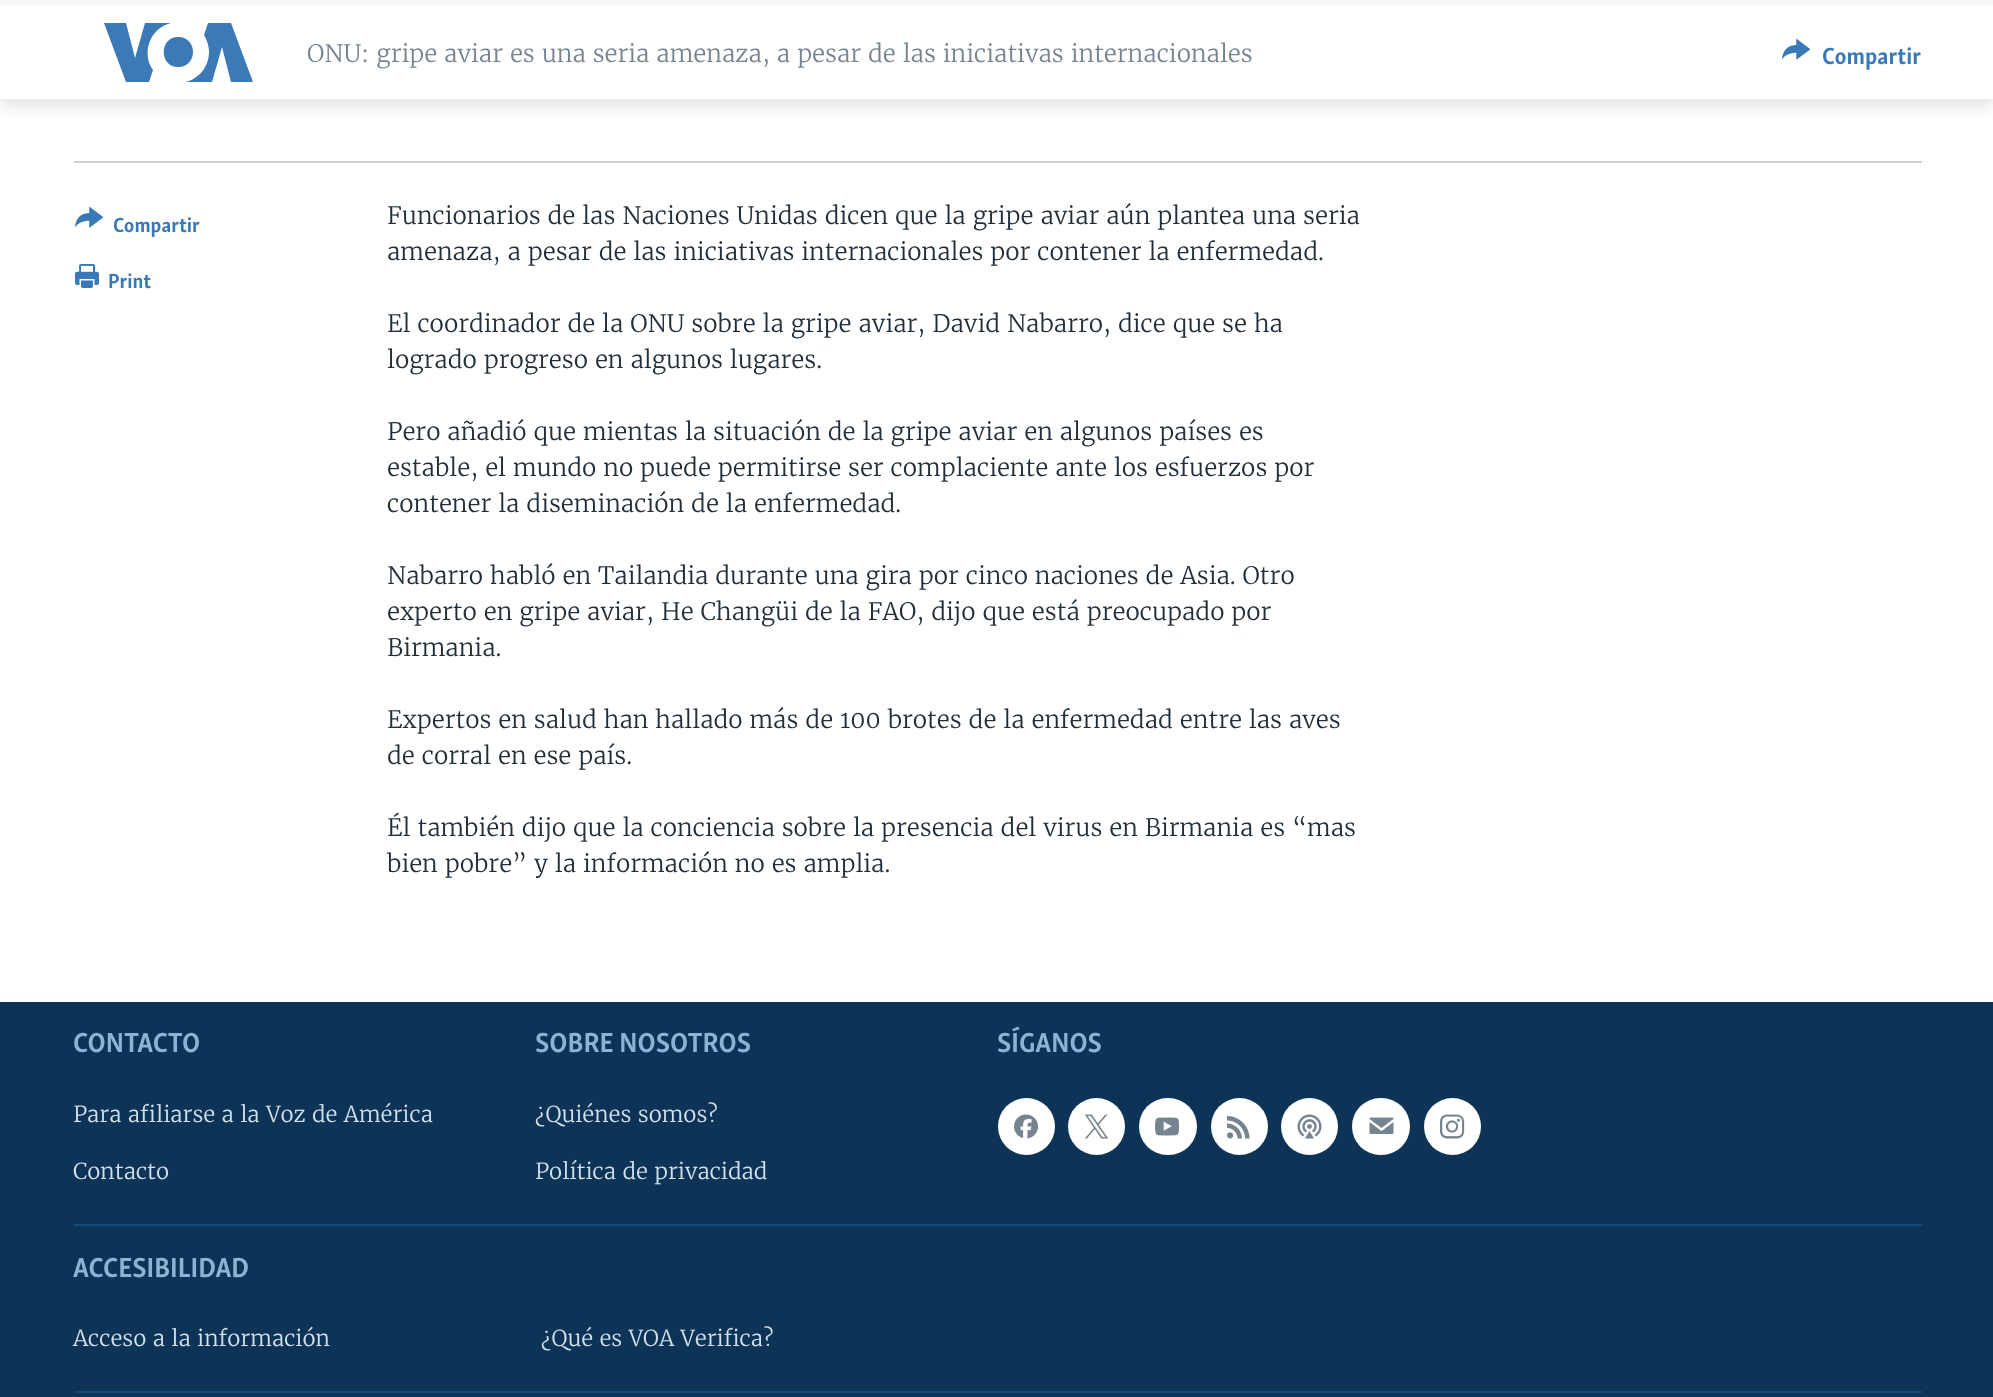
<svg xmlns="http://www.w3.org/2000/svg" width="1993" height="1397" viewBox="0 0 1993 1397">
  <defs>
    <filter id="blur1" x="-50%" y="-200%" width="200%" height="500%"><feGaussianBlur stdDeviation="7.5"/></filter>
    <clipPath id="clip1"><rect x="308" y="35" width="1449" height="36"/></clipPath>
  </defs>
  <rect width="100%" height="100%" fill="#ffffff"/>
  <rect x="0" y="8" width="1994" height="99" fill="#000000" fill-opacity="0.1" filter="url(#blur1)"/>
  <rect x="0" y="6" width="1993" height="93" fill="#ffffff"/>
  <rect x="0" y="0" width="1993" height="6" fill="#f6f7f8"/>
  <path d="M153 70L149 82H126L104 23H126L135 58L145 23H171C150 28 141 53 153 70ZM178 37C159 37 159 67 178 67C198 67 198 37 178 37ZM209 52C209 66 200 78 186 82H212L222 47L231 82H253L231 23H208L204 35C207 40 209 46 209 52Z" fill="#3b79b7"/>
  <g clip-path="url(#clip1)">
    <text x="307" y="62" font-family="Merriweather" font-size="24" font-weight="300" fill="#768492">ONU: gripe aviar es una seria amenaza, a pesar de las iniciativas internacionales</text>
  </g>
  <image x="1782" y="38" width="29" height="22" href="img1.png"/>
  <text x="1822" y="64" font-family="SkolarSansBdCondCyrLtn" font-size="24" font-weight="bold" fill="#3a79b7">Compartir</text>
  <rect x="74" y="161" width="1848" height="2" fill="#cbd1d6"/>
  <image x="75" y="206" width="29" height="22" href="img1.png"/>
  <text x="113" y="232" font-family="SkolarSansBdCondCyrLtn" font-size="21" font-weight="bold" fill="#3a79b7">Compartir</text>
  <image x="75" y="264" width="24" height="24" href="img2.png"/>
  <text x="108" y="288" font-family="SkolarSansBdCondCyrLtn" font-size="21" font-weight="bold" fill="#3a79b7">Print</text>
  <text x="387" y="224" font-family="Merriweather" font-size="24" font-weight="300" fill="#222f3a">Funcionarios de las Naciones Unidas dicen que la gripe aviar aún plantea una seria</text>
  <text x="387" y="260" font-family="Merriweather" font-size="24" font-weight="300" fill="#222f3a">amenaza, a pesar de las iniciativas internacionales por contener la enfermedad.</text>
  <text x="387" y="332" font-family="Merriweather" font-size="24" font-weight="300" fill="#222f3a">El coordinador de la ONU sobre la gripe aviar, David Nabarro, dice que se ha</text>
  <text x="387" y="368" font-family="Merriweather" font-size="24" font-weight="300" fill="#222f3a">logrado progreso en algunos lugares.</text>
  <text x="387" y="440" font-family="Merriweather" font-size="24" font-weight="300" fill="#222f3a">Pero añadió que mientas la situación de la gripe aviar en algunos países es</text>
  <text x="387" y="476" font-family="Merriweather" font-size="24" font-weight="300" fill="#222f3a">estable, el mundo no puede permitirse ser complaciente ante los esfuerzos por</text>
  <text x="387" y="512" font-family="Merriweather" font-size="24" font-weight="300" fill="#222f3a">contener la diseminación de la enfermedad.</text>
  <text x="387" y="584" font-family="Merriweather" font-size="24" font-weight="300" fill="#222f3a">Nabarro habló en Tailandia durante una gira por cinco naciones de Asia. Otro</text>
  <text x="387" y="620" font-family="Merriweather" font-size="24" font-weight="300" fill="#222f3a">experto en gripe aviar, He Changüi de la FAO, dijo que está preocupado por</text>
  <text x="387" y="656" font-family="Merriweather" font-size="24" font-weight="300" fill="#222f3a">Birmania.</text>
  <text x="387" y="728" font-family="Merriweather" font-size="24" font-weight="300" fill="#222f3a">Expertos en salud han hallado más de 100 brotes de la enfermedad entre las aves</text>
  <text x="387" y="764" font-family="Merriweather" font-size="24" font-weight="300" fill="#222f3a">de corral en ese país.</text>
  <text x="387" y="836" font-family="Merriweather" font-size="24" font-weight="300" fill="#222f3a">Él también dijo que la conciencia sobre la presencia del virus en Birmania es “mas</text>
  <text x="387" y="872" font-family="Merriweather" font-size="24" font-weight="300" fill="#222f3a">bien pobre” y la información no es amplia.</text>
  <rect x="0" y="1002" width="1993" height="395" fill="#0d3456"/>
  <text x="73" y="1052" font-family="SkolarSansBdCondCyrLtn" font-size="28.25" font-weight="bold" fill="#8db3d4">CONTACTO</text>
  <text x="73" y="1122" font-family="Merriweather" font-size="22" font-weight="300" fill="#d1e1ee">Para afiliarse a la Voz de América</text>
  <text x="73" y="1179" font-family="Merriweather" font-size="22" font-weight="300" fill="#d1e1ee">Contacto</text>
  <text x="535" y="1052" font-family="SkolarSansBdCondCyrLtn" font-size="28.25" font-weight="bold" fill="#8db3d4">SOBRE NOSOTROS</text>
  <text x="535" y="1122" font-family="Merriweather" font-size="22" font-weight="300" fill="#d1e1ee">¿Quiénes somos?</text>
  <text x="535" y="1179" font-family="Merriweather" font-size="22" font-weight="300" fill="#d1e1ee">Política de privacidad</text>
  <text x="997" y="1052" font-family="SkolarSansBdCondCyrLtn" font-size="28.25" font-weight="bold" fill="#8db3d4">SÍGANOS</text>
  <circle cx="1026.5" cy="1126.5" r="28.5" fill="#ffffff"/>
  <image x="1014" y="1114" width="24" height="25" href="img3.png"/>
  <circle cx="1096.5" cy="1126.5" r="28.5" fill="#ffffff"/>
  <image x="1084" y="1114" width="25" height="25" href="img4.png"/>
  <rect x="1139" y="1098" width="58" height="57" rx="28.5" fill="#ffffff"/>
  <image x="1155" y="1117" width="24" height="19" href="img5.png"/>
  <circle cx="1239.5" cy="1126.5" r="28.5" fill="#ffffff"/>
  <image x="1227" y="1116" width="23" height="23" href="img6.png"/>
  <circle cx="1309.5" cy="1126.5" r="28.5" fill="#ffffff"/>
  <image x="1297" y="1114" width="25" height="25" href="img7.png"/>
  <rect x="1352" y="1098" width="58" height="57" rx="28.5" fill="#ffffff"/>
  <image x="1369" y="1117" width="25" height="17" href="img8.png"/>
  <circle cx="1452.5" cy="1126.5" r="28.5" fill="#ffffff"/>
  <image x="1440" y="1114" width="25" height="25" href="img9.png"/>
  <rect x="74" y="1224" width="1848" height="2" fill="#134976"/>
  <text x="73" y="1277" font-family="SkolarSansBdCondCyrLtn" font-size="28.25" font-weight="bold" fill="#8db3d4">ACCESIBILIDAD</text>
  <text x="73" y="1346" font-family="Merriweather" font-size="22" font-weight="300" fill="#d1e1ee">Acceso a la información</text>
  <text x="541" y="1346" font-family="Merriweather" font-size="22" font-weight="300" fill="#d1e1ee">¿Qué es VOA Verifica?</text>
  <rect x="74" y="1391" width="1848" height="2" fill="#134976"/>
</svg>
